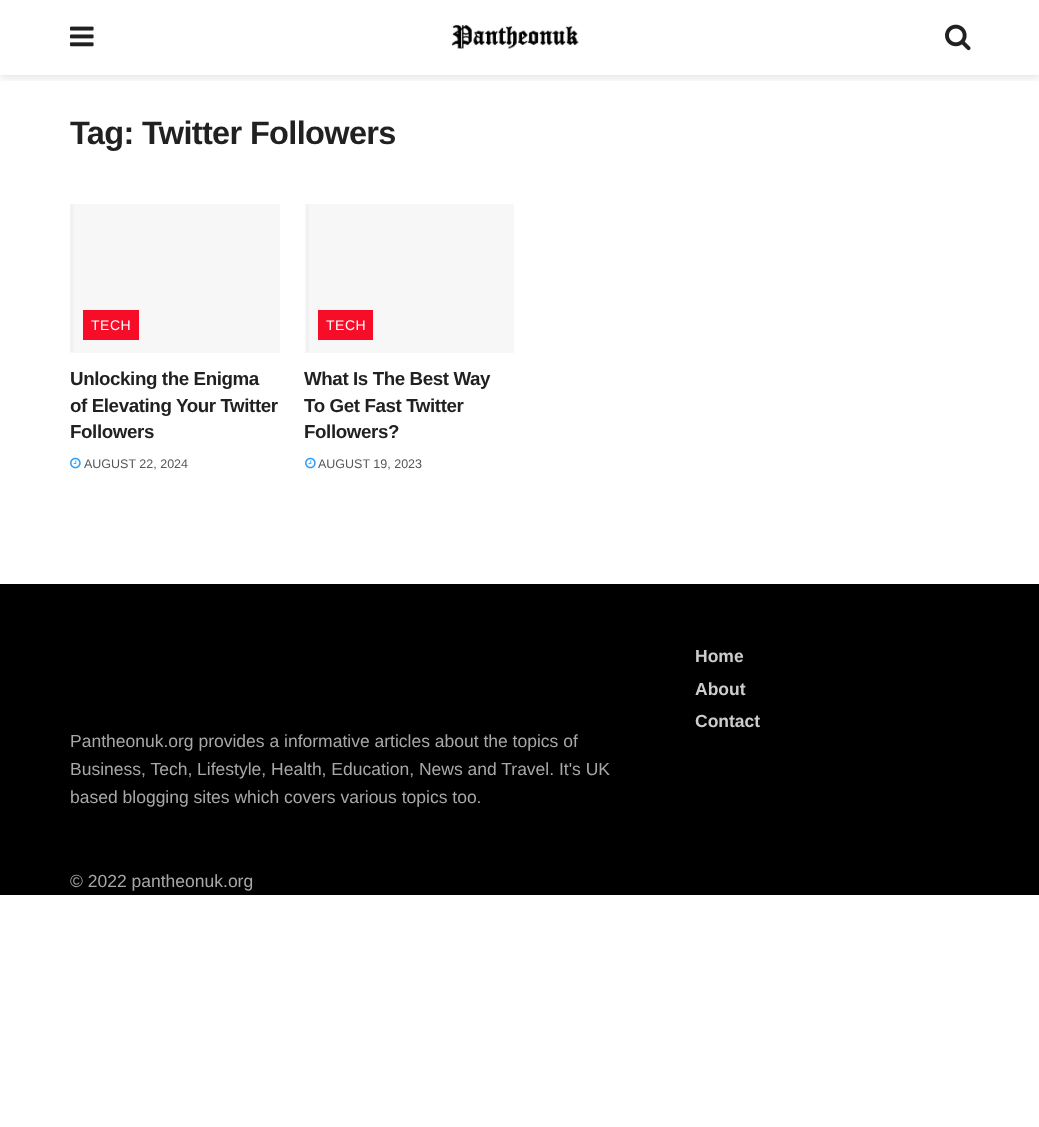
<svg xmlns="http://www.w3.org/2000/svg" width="1039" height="1127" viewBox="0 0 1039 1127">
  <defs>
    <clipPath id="clip1"><rect x="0" y="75" width="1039" height="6"/></clipPath>
    <filter id="blur1" x="-50%" y="-200%" width="200%" height="500%"><feGaussianBlur stdDeviation="4"/></filter>
  </defs>
  <rect width="100%" height="100%" fill="#ffffff"/>
  <g clip-path="url(#clip1)">
    <rect x="0" y="3" width="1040" height="75" fill="#000000" fill-opacity="0.1" filter="url(#blur1)"/>
  </g>
  <image x="70" y="26" width="24" height="21" href="img1.png"/>
  <image x="451" y="24" width="128" height="25" href="img2.png"/>
  <image x="945" y="24" width="26" height="27" href="img3.png"/>
  <text x="70" y="144" font-family="Liberation Sans" font-size="32.5" font-weight="bold" letter-spacing="-0.65" fill="#212121">Tag: Twitter Followers</text>
  <rect x="70" y="204" width="210" height="149" fill="#f7f7f7"/>
  <rect x="70" y="204" width="4" height="148" fill="#f2f2f2"/>
  <rect x="83" y="310" width="56" height="30" fill="#f70d28"/>
  <text x="91" y="330" font-family="Liberation Sans" font-size="14" letter-spacing="0.5" fill="#ffffff">TECH</text>
  <text x="70" y="385" font-family="Liberation Sans" font-size="18.75" font-weight="bold" letter-spacing="-0.4" fill="#212121">Unlocking the Enigma</text>
  <text x="70" y="412" font-family="Liberation Sans" font-size="18.75" font-weight="bold" letter-spacing="-0.4" fill="#212121">of Elevating Your Twitter</text>
  <text x="70" y="438" font-family="Liberation Sans" font-size="18.75" font-weight="bold" letter-spacing="-0.4" fill="#212121">Followers</text>
  <image x="70" y="457" width="11" height="12" href="img4.png"/>
  <text x="84" y="468" font-family="Liberation Sans" font-size="12.5" fill="#53585c">AUGUST 22, 2024</text>
  <rect x="305" y="204" width="209" height="149" fill="#f7f7f7"/>
  <rect x="306" y="204" width="3" height="148" fill="#f2f2f2"/>
  <rect x="318" y="310" width="55" height="30" fill="#f70d28"/>
  <text x="326" y="330" font-family="Liberation Sans" font-size="14" letter-spacing="0.5" fill="#ffffff">TECH</text>
  <text x="304" y="385" font-family="Liberation Sans" font-size="18.75" font-weight="bold" letter-spacing="-0.4" fill="#212121">What Is The Best Way</text>
  <text x="304" y="412" font-family="Liberation Sans" font-size="18.75" font-weight="bold" letter-spacing="-0.4" fill="#212121">To Get Fast Twitter</text>
  <text x="304" y="438" font-family="Liberation Sans" font-size="18.75" font-weight="bold" letter-spacing="-0.4" fill="#212121">Followers?</text>
  <image x="305" y="457" width="11" height="12" href="img4.png"/>
  <text x="318" y="468" font-family="Liberation Sans" font-size="12.5" fill="#53585c">AUGUST 19, 2023</text>
  <rect x="0" y="584" width="1039" height="311" fill="#000000"/>
  <text x="695" y="662" font-family="Liberation Sans" font-size="17.5" font-weight="bold" fill="#cccccc">Home</text>
  <text x="695" y="695" font-family="Liberation Sans" font-size="17.5" font-weight="bold" fill="#cccccc">About</text>
  <text x="695" y="727" font-family="Liberation Sans" font-size="17.5" font-weight="bold" fill="#cccccc">Contact</text>
  <text x="70" y="747" font-family="Liberation Sans" font-size="17.5" fill="#a8a8aa">Pantheonuk.org provides a informative articles about the topics of</text>
  <text x="70" y="775" font-family="Liberation Sans" font-size="17.5" fill="#a8a8aa">Business, Tech, Lifestyle, Health, Education, News and Travel. It's UK</text>
  <text x="70" y="803" font-family="Liberation Sans" font-size="17.5" fill="#a8a8aa">based blogging sites which covers various topics too.</text>
  <text x="70" y="887" font-family="Liberation Sans" font-size="17.5" fill="#a8a8aa">© 2022 pantheonuk.org</text>
</svg>
